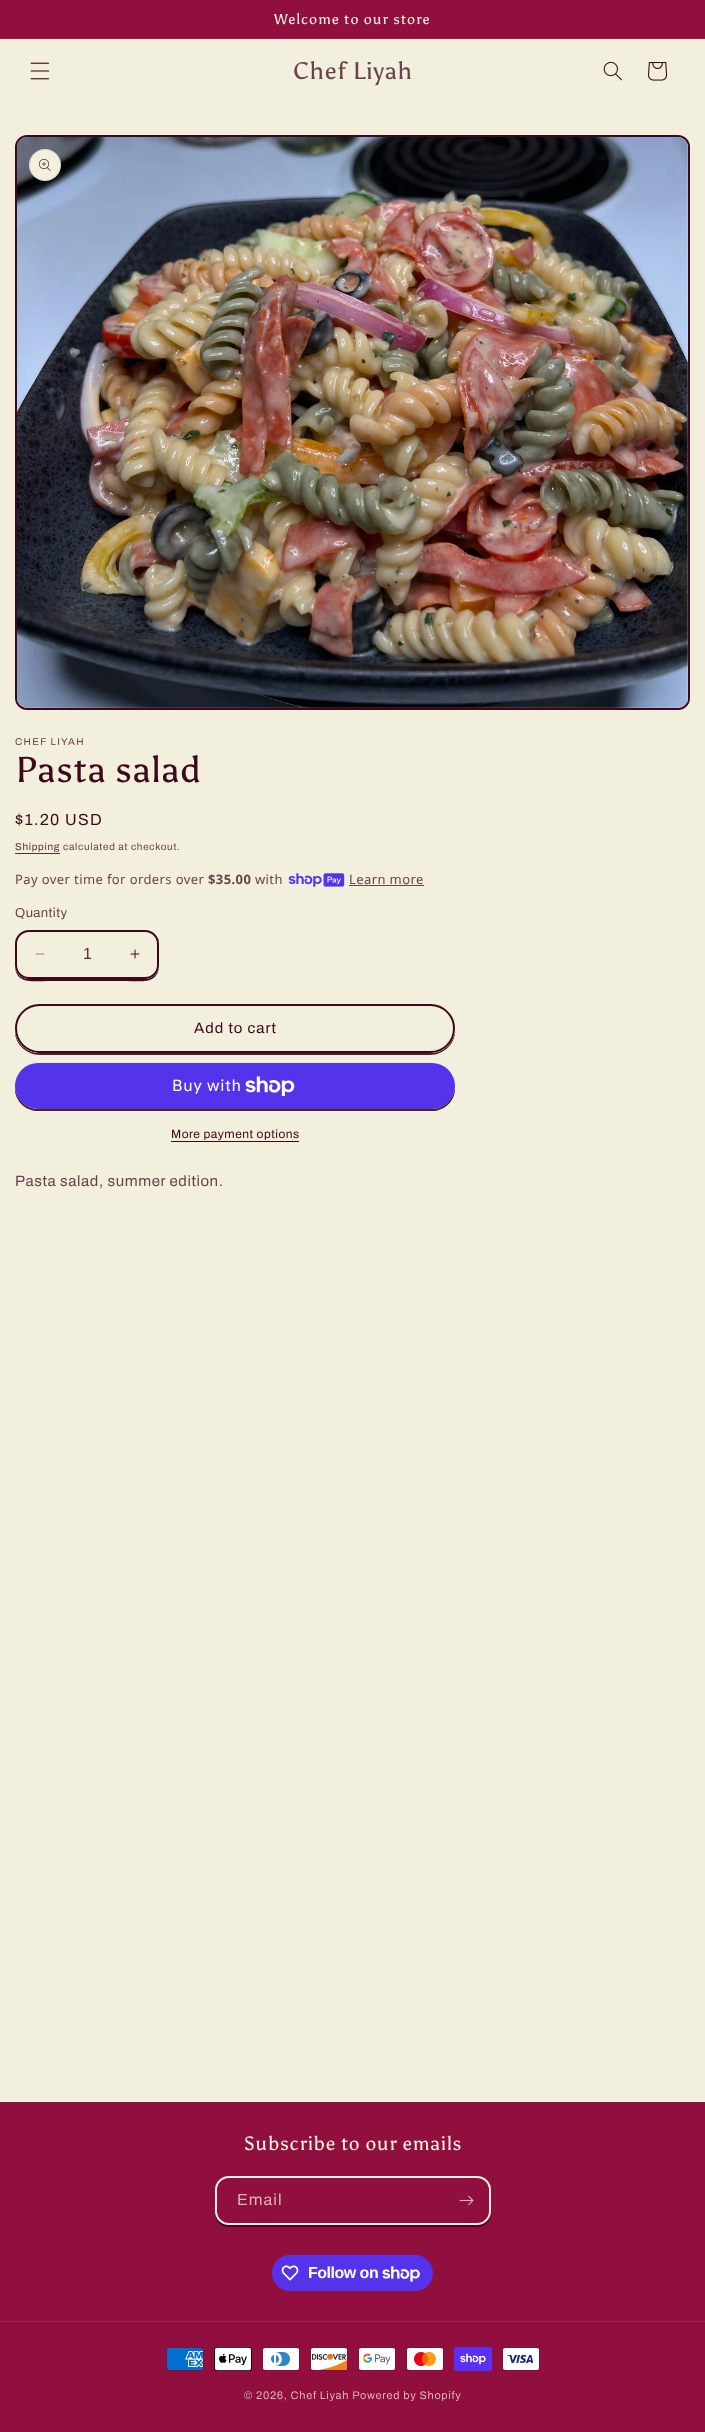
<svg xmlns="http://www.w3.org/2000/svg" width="705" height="2432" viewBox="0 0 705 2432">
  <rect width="100%" height="100%" fill="#f2efdd"/>
  <rect x="0" y="0" width="705" height="38" fill="#910f3f"/>
  <rect x="0" y="38" width="705" height="1" fill="#99214c"/>
  <text x="274" y="24" font-family="Asul" font-size="14.4" letter-spacing="1" fill="#f2efdd">Welcome to our store</text>
  <image x="30" y="62" width="20" height="18" href="img1.png"/>
  <text x="293" y="79" font-family="Asul" font-size="24" letter-spacing="0.75" fill="#6a424c">Chef Liyah</text>
  <image x="603" y="61" width="19" height="20" href="img2.png"/>
  <image x="648" y="62" width="20" height="19" href="img3.png"/>
  <rect x="16" y="136" width="673" height="573" rx="11" fill="none" stroke="#3d081b" stroke-width="2"/>
  <image x="17" y="137" width="671" height="571" href="img4.png"/>
  <circle cx="45" cy="165" r="16" fill="#f2efdd"/>
  <circle cx="45" cy="165" r="15.5" fill="none" stroke="#3d081b" stroke-opacity="0.1"/>
  <image x="39" y="159" width="12" height="12" href="img5.png"/>
  <text x="15" y="745" font-family="Archivo" font-size="10" letter-spacing="1.25" fill="#6a424c">CHEF LIYAH</text>
  <text x="15" y="782" font-family="Asul" font-size="36" letter-spacing="0.75" fill="#3d081b">Pasta salad</text>
  <text x="15" y="825" font-family="Archivo" font-size="16" letter-spacing="1.25" fill="#3d081b">$1.20 USD</text>
  <text x="15" y="850" font-family="Archivo" font-size="10" letter-spacing="0.7" fill="#582b38">Shipping</text>
  <rect x="15" y="853" width="45" height="1" fill="#582b38"/>
  <text x="63" y="850" font-family="Archivo" font-size="10" letter-spacing="0.7" fill="#6a424c">calculated at checkout.</text>
  <text x="15" y="884" font-family="Noto Sans" font-size="13" letter-spacing="0.4" fill="#6a424c">Pay over time for orders over</text>
  <text x="208" y="884" font-family="Noto Sans" font-size="13" font-weight="bold" letter-spacing="0.4" fill="#6a424c">$35.00</text>
  <text x="255" y="884" font-family="Noto Sans" font-size="13" letter-spacing="0.4" fill="#6a424c">with</text>
  <image x="288" y="873" width="57" height="14" href="img6.png"/>
  <text x="349" y="884" font-family="Noto Sans" font-size="13" letter-spacing="0.4" fill="#6a424c">Learn more</text>
  <rect x="349" y="885" width="75" height="1" fill="#6a424c"/>
  <text x="15" y="917" font-family="Archivo" font-size="13" letter-spacing="0.4" fill="#6a424c">Quantity</text>
  <path d="M15 965C15 985 34 981 48 981H126C140 981 159 985 159 965C159 973 153 979 145 979H29C21 979 15 973 15 965Z" fill="#3d081b"/>
  <rect x="15" y="930" width="144" height="49" rx="14" fill="#f2efdd"/>
  <image x="35" y="953" width="10" height="2" href="img7.png"/>
  <image x="130" y="949" width="10" height="10" href="img8.png"/>
  <rect x="16" y="931" width="142" height="47" rx="13" fill="none" stroke="#3d081b" stroke-width="2"/>
  <text x="83" y="959" font-family="Liberation Sans" font-size="16" fill="#582b38">1</text>
  <path d="M15 1030C14 1043 26 1055 40 1055H430C444 1055 456 1043 455 1030C454 1043 444 1053 430 1053H40C26 1053 16 1043 15 1030Z" fill="#4f1f2e"/>
  <rect x="15" y="1004" width="440" height="49" rx="24.5" fill="#f2efdd"/>
  <rect x="16" y="1005" width="438" height="47" rx="23.5" fill="none" stroke="#f2efdd" stroke-width="2"/>
  <rect x="16" y="1005" width="438" height="47" rx="23.5" fill="none" stroke="#3d081b" stroke-width="2"/>
  <text x="194" y="1033" font-family="Archivo" font-size="15" letter-spacing="1" fill="#3d081b">Add to cart</text>
  <path d="M15 1087C14 1100 25 1111 38 1111H432C445 1111 456 1100 455 1087C454 1099 444 1109 432 1109H38C26 1109 16 1099 15 1087Z" fill="#4f1f2e"/>
  <rect x="15" y="1063" width="440" height="46" rx="23" fill="#5433eb"/>
  <text x="172" y="1091" font-family="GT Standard" font-size="16" letter-spacing="0.6" fill="#ffffff">Buy with</text>
  <image x="245" y="1076" width="50" height="20" href="img9.png"/>
  <text x="171" y="1138" font-family="Archivo" font-size="12" letter-spacing="0.5" fill="#3d081b">More payment options</text>
  <rect x="171" y="1141" width="128" height="1" fill="#3d081b"/>
  <text x="15" y="1186" font-family="Archivo" font-size="15" letter-spacing="0.6" fill="#6a424c">Pasta salad, summer edition.</text>
  <rect x="0" y="2102" width="705" height="330" fill="#910f3f"/>
  <text x="244" y="2150" font-family="Asul" font-size="19.25" letter-spacing="0.75" fill="#f2efdd">Subscribe to our emails</text>
  <path d="M215 2211V2213C215 2221 221 2227 229 2227H477C485 2227 491 2221 491 2213V2211C491 2219 485 2225 477 2225H229C221 2225 215 2219 215 2211Z" fill="#3d081b"/>
  <rect x="216" y="2177" width="274" height="47" rx="13" fill="none" stroke="#f2efdd" stroke-width="2"/>
  <text x="237" y="2205" font-family="Archivo" font-size="16" letter-spacing="1" fill="#dab7b6">Email</text>
  <image x="459" y="2195" width="15" height="11" href="img10.png"/>
  <rect x="272" y="2255" width="161" height="36" rx="18" fill="#5433eb"/>
  <image x="281" y="2265" width="18" height="16" href="img11.png"/>
  <text x="308" y="2278" font-family="Liberation Sans" font-size="16" font-weight="bold" letter-spacing="-0.5" fill="#ffffff">Follow on</text>
  <image x="382" y="2266" width="38" height="16" href="img12.png"/>
  <rect x="0" y="2321" width="705" height="1" fill="#99214c"/>
  <image x="166" y="2347" width="38" height="24" href="img13.png"/>
  <image x="214" y="2347" width="38" height="24" href="img14.png"/>
  <image x="262" y="2347" width="38" height="24" href="img15.png"/>
  <image x="310" y="2347" width="38" height="24" href="img16.png"/>
  <image x="358" y="2347" width="38" height="24" href="img17.png"/>
  <image x="406" y="2347" width="38" height="24" href="img18.png"/>
  <image x="454" y="2347" width="38" height="24" href="img19.png"/>
  <image x="502" y="2347" width="38" height="24" href="img20.png"/>
  <text x="244" y="2399" font-family="Archivo" font-size="11" letter-spacing="0.7" fill="#dab7b6">© 2026, Chef Liyah Powered by Shopify</text>
</svg>
